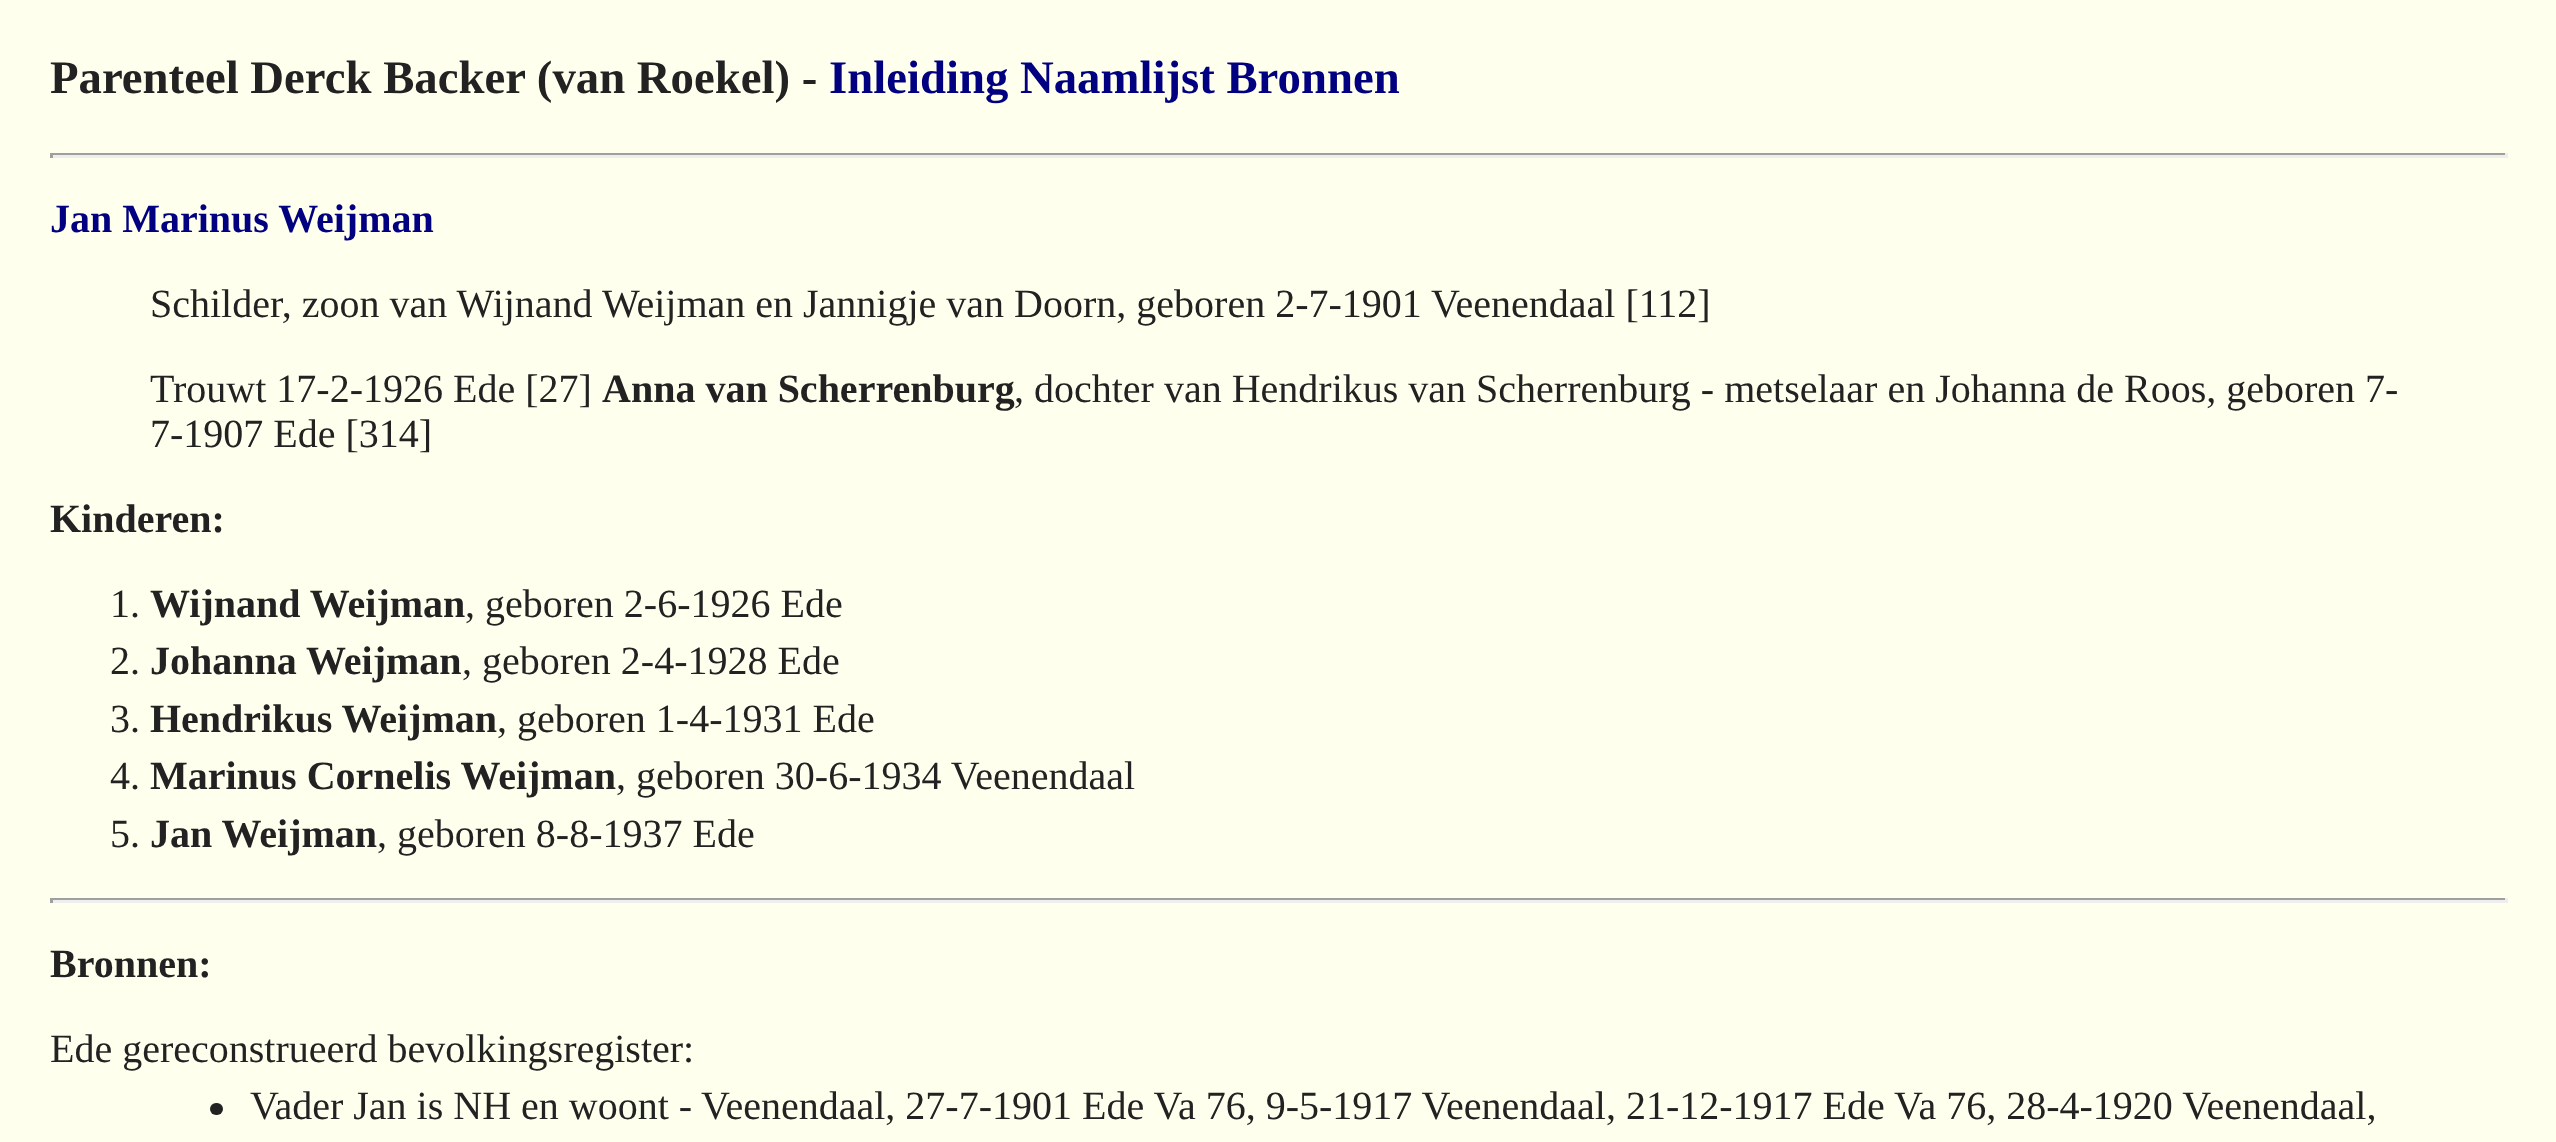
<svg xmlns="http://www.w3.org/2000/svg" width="2556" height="1142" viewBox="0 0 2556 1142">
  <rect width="100%" height="100%" fill="#ffffee"/>
  <text x="50" y="93" font-family="Liberation Serif" font-size="46.75" font-weight="bold" fill="#222222">Parenteel Derck Backer (van Roekel) -</text>
  <text x="829" y="93" font-family="Liberation Serif" font-size="46.75" font-weight="bold" fill="#000080">Inleiding Naamlijst Bronnen</text>
  <rect x="50" y="153" width="2458" height="2" fill="#9f9f9f"/>
  <rect x="2505" y="153" width="3" height="5" fill="#eeeeee"/>
  <rect x="50" y="155" width="2458" height="3" fill="#eeeeee"/>
  <rect x="50" y="153" width="3" height="5" fill="#9f9f9f"/>
  <text x="50" y="232" font-family="Liberation Serif" font-size="40" font-weight="bold" fill="#000080">Jan Marinus Weijman</text>
  <text x="150" y="317" font-family="Liberation Serif" font-size="40" fill="#222222">Schilder, zoon van Wijnand Weijman en Jannigje van Doorn, geboren 2-7-1901 Veenendaal [112]</text>
  <text x="150" y="402" font-family="Liberation Serif" font-size="40" fill="#222222">Trouwt 17-2-1926 Ede [27]</text>
  <text x="602" y="402" font-family="Liberation Serif" font-size="40" font-weight="bold" fill="#222222">Anna van Scherrenburg</text>
  <text x="1014" y="402" font-family="Liberation Serif" font-size="40" fill="#222222">, dochter van Hendrikus van Scherrenburg - metselaar en Johanna de Roos, geboren 7-</text>
  <text x="150" y="447" font-family="Liberation Serif" font-size="40" fill="#222222">7-1907 Ede [314]</text>
  <text x="50" y="532" font-family="Liberation Serif" font-size="40" font-weight="bold" fill="#222222">Kinderen:</text>
  <text x="110" y="617" font-family="Liberation Serif" font-size="40" fill="#222222">1.</text>
  <text x="150" y="617" font-family="Liberation Serif" font-size="40" font-weight="bold" fill="#222222">Wijnand Weijman</text>
  <text x="465" y="617" font-family="Liberation Serif" font-size="40" fill="#222222">, geboren 2-6-1926 Ede</text>
  <text x="110" y="674" font-family="Liberation Serif" font-size="40" fill="#222222">2.</text>
  <text x="150" y="674" font-family="Liberation Serif" font-size="40" font-weight="bold" fill="#222222">Johanna Weijman</text>
  <text x="462" y="674" font-family="Liberation Serif" font-size="40" fill="#222222">, geboren 2-4-1928 Ede</text>
  <text x="110" y="732" font-family="Liberation Serif" font-size="40" fill="#222222">3.</text>
  <text x="150" y="732" font-family="Liberation Serif" font-size="40" font-weight="bold" fill="#222222">Hendrikus Weijman</text>
  <text x="497" y="732" font-family="Liberation Serif" font-size="40" fill="#222222">, geboren 1-4-1931 Ede</text>
  <text x="110" y="789" font-family="Liberation Serif" font-size="40" fill="#222222">4.</text>
  <text x="150" y="789" font-family="Liberation Serif" font-size="40" font-weight="bold" fill="#222222">Marinus Cornelis Weijman</text>
  <text x="616" y="789" font-family="Liberation Serif" font-size="40" fill="#222222">, geboren 30-6-1934 Veenendaal</text>
  <text x="110" y="847" font-family="Liberation Serif" font-size="40" fill="#222222">5.</text>
  <text x="150" y="847" font-family="Liberation Serif" font-size="40" font-weight="bold" fill="#222222">Jan Weijman</text>
  <text x="377" y="847" font-family="Liberation Serif" font-size="40" fill="#222222">, geboren 8-8-1937 Ede</text>
  <rect x="50" y="898" width="2458" height="2" fill="#9f9f9f"/>
  <rect x="2505" y="898" width="3" height="5" fill="#eeeeee"/>
  <rect x="50" y="900" width="2458" height="3" fill="#eeeeee"/>
  <rect x="50" y="898" width="3" height="5" fill="#9f9f9f"/>
  <text x="50" y="977" font-family="Liberation Serif" font-size="40" font-weight="bold" fill="#222222">Bronnen:</text>
  <text x="50" y="1062" font-family="Liberation Serif" font-size="40" fill="#222222">Ede gereconstrueerd bevolkingsregister:</text>
  <rect x="210" y="1103" width="13" height="12" rx="6" fill="#222222"/>
  <text x="250" y="1119" font-family="Liberation Serif" font-size="40" fill="#222222">Vader Jan is NH en woont -</text>
  <text x="701" y="1119" font-family="Liberation Serif" font-size="40" fill="#222222">Veenendaal, 27-7-1901 Ede Va 76, 9-5-1917 Veenendaal, 21-12-1917 Ede Va 76, 28-4-1920 Veenendaal,</text>
</svg>
